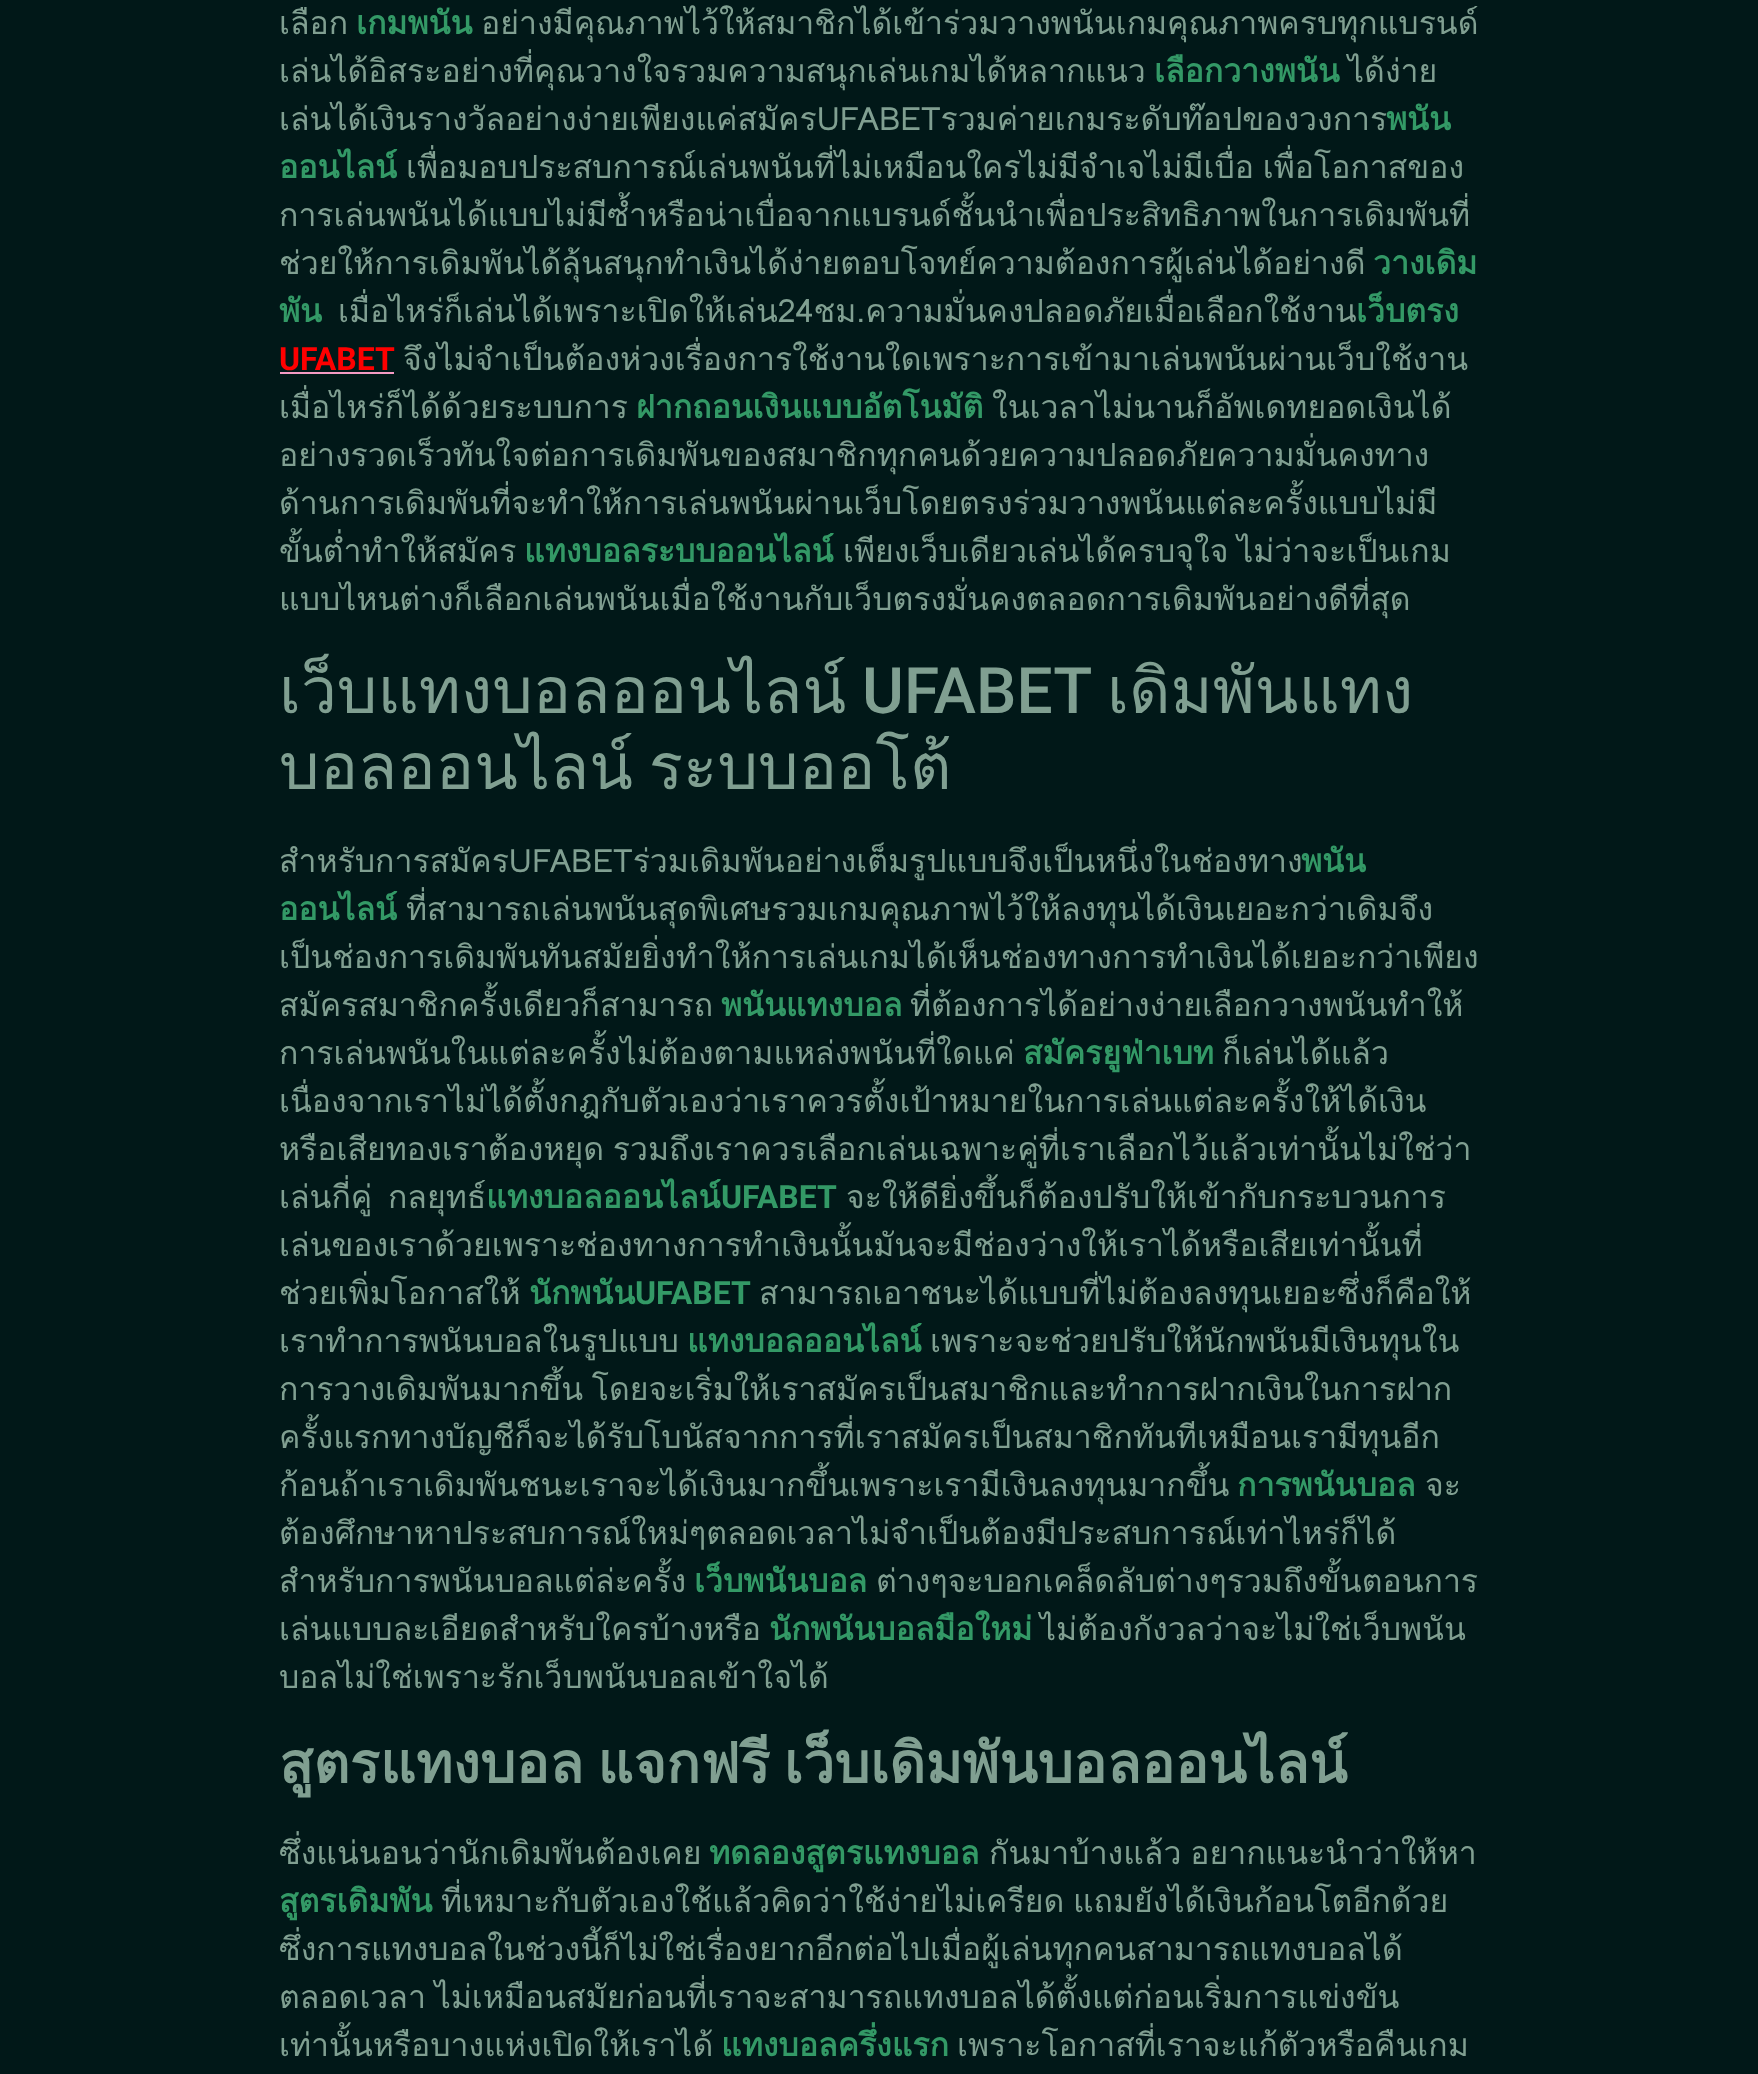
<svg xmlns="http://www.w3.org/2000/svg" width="1758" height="2074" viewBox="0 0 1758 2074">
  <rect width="100%" height="100%" fill="#011818"/>
  <text x="279" y="34" font-family="Loma" font-size="32" fill="#809f91">เลือก</text>
  <text x="356" y="34" font-family="Loma" font-size="32" font-weight="bold" fill="#339966">เกมพนัน</text>
  <text x="481" y="34" font-family="Loma" font-size="32" fill="#809f91">อย่างมีคุณภาพไว้ให้สมาชิกได้เข้าร่วมวางพนันเกมคุณภาพครบทุกแบรนด์</text>
  <text x="279" y="82" font-family="Loma" font-size="32" fill="#809f91">เล่นได้อิสระอย่างที่คุณวางใจรวมความสนุกเล่นเกมได้หลากแนว</text>
  <text x="1154" y="82" font-family="Loma" font-size="32" font-weight="bold" fill="#339966">เลือกวางพนัน</text>
  <text x="1348" y="82" font-family="Loma" font-size="32" fill="#809f91">ได้ง่าย</text>
  <text x="279" y="130" font-family="Loma" font-size="32" fill="#809f91">เล่นได้เงินรางวัลอย่างง่ายเพียงแค่สมัครUFABETรวมค่ายเกมระดับท๊อปของวงการ</text>
  <text x="1386" y="130" font-family="Loma" font-size="32" font-weight="bold" fill="#339966">พนัน</text>
  <text x="279" y="178" font-family="Loma" font-size="32" font-weight="bold" fill="#339966">ออนไลน์</text>
  <text x="406" y="178" word-spacing="-2" font-family="Loma" font-size="32" fill="#809f91">เพื่อมอบประสบการณ์เล่นพนันที่ไม่เหมือนใครไม่มีจำเจไม่มีเบื่อ เพื่อโอกาสของ</text>
  <text x="279" y="226" font-family="Loma" font-size="32" fill="#809f91">การเล่นพนันได้แบบไม่มีซ้ำหรือน่าเบื่อจากแบรนด์ชั้นนำเพื่อประสิทธิภาพในการเดิมพันที่</text>
  <text x="279" y="274" font-family="Loma" font-size="32" fill="#809f91">ช่วยให้การเดิมพันได้ลุ้นสนุกทำเงินได้ง่ายตอบโจทย์ความต้องการผู้เล่นได้อย่างดี</text>
  <text x="1373" y="274" font-family="Loma" font-size="32" font-weight="bold" fill="#339966">วางเดิม</text>
  <text x="279" y="322" font-family="Loma" font-size="32" font-weight="bold" fill="#339966">พัน</text>
  <text x="338" y="322" font-family="Loma" font-size="32" fill="#809f91">เมื่อไหร่ก็เล่นได้เพราะเปิดให้เล่น24ชม.ความมั่นคงปลอดภัยเมื่อเลือกใช้งาน</text>
  <text x="1356" y="322" font-family="Loma" font-size="32" font-weight="bold" fill="#339966">เว็บตรง</text>
  <text x="279" y="370" font-family="Roboto" font-size="32" font-weight="bold" fill="#ff0000">UFABET</text>
  <rect x="280" y="372" width="114" height="2" fill="#f49ac3"/>
  <text x="403" y="370" font-family="Loma" font-size="32" fill="#809f91">จึงไม่จำเป็นต้องห่วงเรื่องการใช้งานใดเพราะการเข้ามาเล่นพนันผ่านเว็บใช้งาน</text>
  <text x="279" y="418" font-family="Loma" font-size="32" fill="#809f91">เมื่อไหร่ก็ได้ด้วยระบบการ</text>
  <text x="636" y="418" font-family="Loma" font-size="32" font-weight="bold" fill="#339966">ฝากถอนเงินแบบอัตโนมัติ</text>
  <text x="992" y="418" font-family="Loma" font-size="32" fill="#809f91">ในเวลาไม่นานก็อัพเดทยอดเงินได้</text>
  <text x="279" y="466" font-family="Loma" font-size="32" fill="#809f91">อย่างรวดเร็วทันใจต่อการเดิมพันของสมาชิกทุกคนด้วยความปลอดภัยความมั่นคงทาง</text>
  <text x="279" y="514" font-family="Loma" font-size="32" fill="#809f91">ด้านการเดิมพันที่จะทำให้การเล่นพนันผ่านเว็บโดยตรงร่วมวางพนันแต่ละครั้งแบบไม่มี</text>
  <text x="279" y="562" font-family="Loma" font-size="32" fill="#809f91">ขั้นต่ำทำให้สมัคร</text>
  <text x="524" y="562" font-family="Loma" font-size="32" font-weight="bold" fill="#339966">แทงบอลระบบออนไลน์</text>
  <text x="843" y="562" word-spacing="-2" font-family="Loma" font-size="32" fill="#809f91">เพียงเว็บเดียวเล่นได้ครบจุใจ ไม่ว่าจะเป็นเกม</text>
  <text x="279" y="610" font-family="Loma" font-size="32" fill="#809f91">แบบไหนต่างก็เลือกเล่นพนันเมื่อใช้งานกับเว็บตรงมั่นคงตลอดการเดิมพันอย่างดีที่สุด</text>
  <text x="279" y="713" font-family="Loma" font-size="64" fill="#809f91">เว็บแทงบอลออนไลน์</text>
  <text x="862" y="713" font-family="Roboto" font-size="64" font-weight="500" fill="#809f91">UFABET</text>
  <text x="1107" y="713" font-family="Loma" font-size="64" fill="#809f91">เดิมพันแทง</text>
  <text x="279" y="789" word-spacing="-6" font-family="Loma" font-size="64" fill="#809f91">บอลออนไลน์ ระบบออโต้</text>
  <text x="279" y="872" font-family="Loma" font-size="32" fill="#809f91">สำหรับการสมัครUFABETร่วมเดิมพันอย่างเต็มรูปแบบจึงเป็นหนึ่งในช่องทาง</text>
  <text x="1301" y="872" font-family="Loma" font-size="32" font-weight="bold" fill="#339966">พนัน</text>
  <text x="279" y="920" font-family="Loma" font-size="32" font-weight="bold" fill="#339966">ออนไลน์</text>
  <text x="406" y="920" font-family="Loma" font-size="32" fill="#809f91">ที่สามารถเล่นพนันสุดพิเศษรวมเกมคุณภาพไว้ให้ลงทุนได้เงินเยอะกว่าเดิมจึง</text>
  <text x="279" y="968" font-family="Loma" font-size="32" fill="#809f91">เป็นช่องการเดิมพันทันสมัยยิ่งทำให้การเล่นเกมได้เห็นช่องทางการทำเงินได้เยอะกว่าเพียง</text>
  <text x="279" y="1016" font-family="Loma" font-size="32" fill="#809f91">สมัครสมาชิกครั้งเดียวก็สามารถ</text>
  <text x="721" y="1016" font-family="Loma" font-size="32" font-weight="bold" fill="#339966">พนันแทงบอล</text>
  <text x="910" y="1016" font-family="Loma" font-size="32" fill="#809f91">ที่ต้องการได้อย่างง่ายเลือกวางพนันทำให้</text>
  <text x="279" y="1064" font-family="Loma" font-size="32" fill="#809f91">การเล่นพนันในแต่ละครั้งไม่ต้องตามแหล่งพนันที่ใดแค่</text>
  <text x="1023" y="1064" font-family="Loma" font-size="32" font-weight="bold" fill="#339966">สมัครยูฟ่าเบท</text>
  <text x="1222" y="1064" font-family="Loma" font-size="32" fill="#809f91">ก็เล่นได้แล้ว</text>
  <text x="279" y="1112" font-family="Loma" font-size="32" fill="#809f91">เนื่องจากเราไม่ได้ตั้งกฎกับตัวเองว่าเราควรตั้งเป้าหมายในการเล่นแต่ละครั้งให้ได้เงิน</text>
  <text x="279" y="1160" word-spacing="-2" font-family="Loma" font-size="32" fill="#809f91">หรือเสียทองเราต้องหยุด รวมถึงเราควรเลือกเล่นเฉพาะคู่ที่เราเลือกไว้แล้วเท่านั้นไม่ใช่ว่า</text>
  <text x="279" y="1208" word-spacing="5" font-family="Loma" font-size="32" fill="#809f91">เล่นกี่คู่ กลยุทธ์</text>
  <text x="486" y="1208" font-family="Loma" font-size="32" font-weight="bold" fill="#339966">แทงบอลออนไลน์</text>
  <text x="721" y="1208" font-family="Roboto" font-size="32" font-weight="bold" fill="#339966">UFABET</text>
  <text x="846" y="1208" font-family="Loma" font-size="32" fill="#809f91">จะให้ดียิ่งขึ้นก็ต้องปรับให้เข้ากับกระบวนการ</text>
  <text x="279" y="1256" font-family="Loma" font-size="32" fill="#809f91">เล่นของเราด้วยเพราะช่องทางการทำเงินนั้นมันจะมีช่องว่างให้เราได้หรือเสียเท่านั้นที่</text>
  <text x="279" y="1304" font-family="Loma" font-size="32" fill="#809f91">ช่วยเพิ่มโอกาสให้</text>
  <text x="529" y="1304" font-family="Loma" font-size="32" font-weight="bold" fill="#339966">นักพนัน</text>
  <text x="635" y="1304" font-family="Roboto" font-size="32" font-weight="bold" fill="#339966">UFABET</text>
  <text x="759" y="1304" font-family="Loma" font-size="32" fill="#809f91">สามารถเอาชนะได้แบบที่ไม่ต้องลงทุนเยอะซึ่งก็คือให้</text>
  <text x="279" y="1352" font-family="Loma" font-size="32" fill="#809f91">เราทำการพนันบอลในรูปแบบ</text>
  <text x="687" y="1352" font-family="Loma" font-size="32" font-weight="bold" fill="#339966">แทงบอลออนไลน์</text>
  <text x="930" y="1352" font-family="Loma" font-size="32" fill="#809f91">เพราะจะช่วยปรับให้นักพนันมีเงินทุนใน</text>
  <text x="279" y="1400" word-spacing="-2" font-family="Loma" font-size="32" fill="#809f91">การวางเดิมพันมากขึ้น โดยจะเริ่มให้เราสมัครเป็นสมาชิกและทำการฝากเงินในการฝาก</text>
  <text x="279" y="1448" font-family="Loma" font-size="32" fill="#809f91">ครั้งแรกทางบัญชีก็จะได้รับโบนัสจากการที่เราสมัครเป็นสมาชิกทันทีเหมือนเรามีทุนอีก</text>
  <text x="279" y="1496" font-family="Loma" font-size="32" fill="#809f91">ก้อนถ้าเราเดิมพันชนะเราจะได้เงินมากขึ้นเพราะเรามีเงินลงทุนมากขึ้น</text>
  <text x="1237" y="1496" font-family="Loma" font-size="32" font-weight="bold" fill="#339966">การพนันบอล</text>
  <text x="1425" y="1496" font-family="Loma" font-size="32" fill="#809f91">จะ</text>
  <text x="279" y="1544" font-family="Loma" font-size="32" fill="#809f91">ต้องศึกษาหาประสบการณ์ใหม่ๆตลอดเวลาไม่จำเป็นต้องมีประสบการณ์เท่าไหร่ก็ได้</text>
  <text x="279" y="1592" font-family="Loma" font-size="32" fill="#809f91">สำหรับการพนันบอลแต่ล่ะครั้ง</text>
  <text x="694" y="1592" font-family="Loma" font-size="32" font-weight="bold" fill="#339966">เว็บพนันบอล</text>
  <text x="876" y="1592" font-family="Loma" font-size="32" fill="#809f91">ต่างๆจะบอกเคล็ดลับต่างๆรวมถึงขั้นตอนการ</text>
  <text x="279" y="1640" font-family="Loma" font-size="32" fill="#809f91">เล่นแบบละเอียดสำหรับใครบ้างหรือ</text>
  <text x="769" y="1640" font-family="Loma" font-size="32" font-weight="bold" fill="#339966">นักพนันบอลมือใหม่</text>
  <text x="1040" y="1640" font-family="Loma" font-size="32" fill="#809f91">ไม่ต้องกังวลว่าจะไม่ใช่เว็บพนัน</text>
  <text x="279" y="1688" font-family="Loma" font-size="32" fill="#809f91">บอลไม่ใช่เพราะรักเว็บพนันบอลเข้าใจได้</text>
  <text x="279" y="1783" word-spacing="-5" font-family="Loma" font-size="56" font-weight="bold" fill="#809f91">สูตรแทงบอล แจกฟรี เว็บเดิมพันบอลออนไลน์</text>
  <text x="279" y="1864" font-family="Loma" font-size="32" fill="#809f91">ซึ่งแน่นอนว่านักเดิมพันต้องเคย</text>
  <text x="709" y="1864" font-family="Loma" font-size="32" font-weight="bold" fill="#339966">ทดลองสูตรแทงบอล</text>
  <text x="989" y="1864" word-spacing="-2" font-family="Loma" font-size="32" fill="#809f91">กันมาบ้างแล้ว อยากแนะนำว่าให้หา</text>
  <text x="279" y="1912" font-family="Loma" font-size="32" font-weight="bold" fill="#339966">สูตรเดิมพัน</text>
  <text x="441" y="1912" word-spacing="-2" font-family="Loma" font-size="32" fill="#809f91">ที่เหมาะกับตัวเองใช้แล้วคิดว่าใช้ง่ายไม่เครียด แถมยังได้เงินก้อนโตอีกด้วย</text>
  <text x="279" y="1960" font-family="Loma" font-size="32" fill="#809f91">ซึ่งการแทงบอลในช่วงนี้ก็ไม่ใช่เรื่องยากอีกต่อไปเมื่อผู้เล่นทุกคนสามารถแทงบอลได้</text>
  <text x="279" y="2008" word-spacing="-2" font-family="Loma" font-size="32" fill="#809f91">ตลอดเวลา ไม่เหมือนสมัยก่อนที่เราจะสามารถแทงบอลได้ตั้งแต่ก่อนเริ่มการแข่งขัน</text>
  <text x="279" y="2056" font-family="Loma" font-size="32" fill="#809f91">เท่านั้นหรือบางแห่งเปิดให้เราได้</text>
  <text x="721" y="2056" font-family="Loma" font-size="32" font-weight="bold" fill="#339966">แทงบอลครึ่งแรก</text>
  <text x="957" y="2056" font-family="Loma" font-size="32" fill="#809f91">เพราะโอกาสที่เราจะแก้ตัวหรือคืนเกม</text>
</svg>
